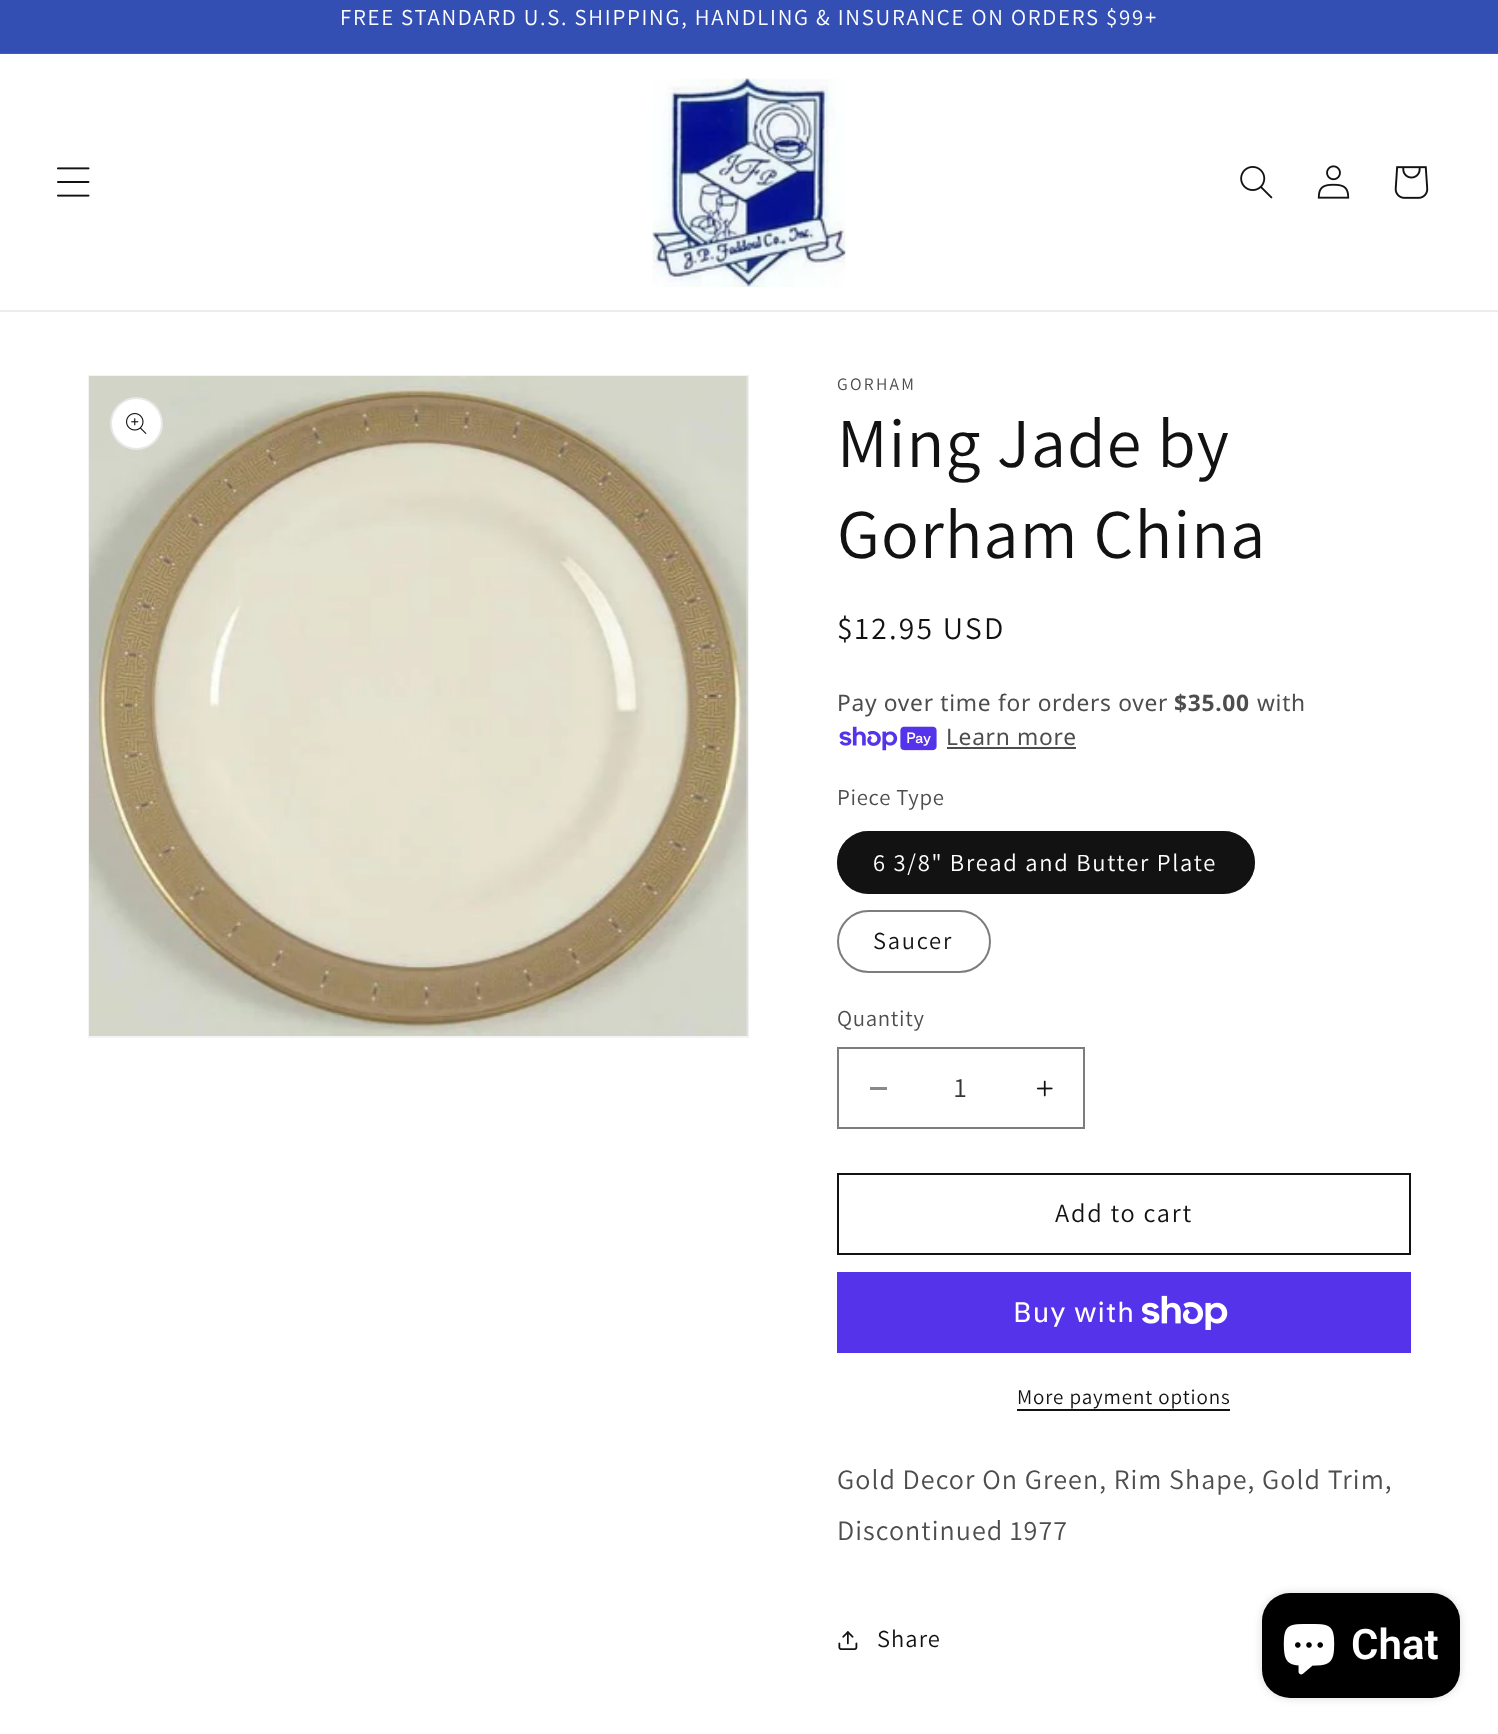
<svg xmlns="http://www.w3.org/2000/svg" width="1498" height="1734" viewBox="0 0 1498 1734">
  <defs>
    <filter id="blur1" x="-50%" y="-200%" width="200%" height="500%"><feGaussianBlur stdDeviation="4.5"/></filter>
  </defs>
  <rect width="100%" height="100%" fill="#ffffff"/>
  <rect x="0" y="0" width="1498" height="53" fill="#334fb4"/>
  <rect x="0" y="53" width="1498" height="1" fill="#435dba"/>
  <text x="340" y="25" font-family="Assistant" font-size="22.75" letter-spacing="1.75" fill="#ffffff">FREE STANDARD U.S. SHIPPING, HANDLING &amp; INSURANCE ON ORDERS $99+</text>
  <rect x="0" y="310" width="1498" height="2" fill="#ececec"/>
  <image x="57" y="167" width="33" height="30" href="img1.png"/>
  <image x="652" y="78" width="194" height="209" href="img2.png"/>
  <image x="1240" y="166" width="33" height="33" href="img3.png"/>
  <image x="1317" y="165" width="33" height="34" href="img4.png"/>
  <image x="1394" y="166" width="35" height="33" href="img5.png"/>
  <rect x="89" y="376" width="659" height="661" fill="none" stroke="#f3f3f3" stroke-width="2"/>
  <image x="89" y="376" width="659" height="660" href="img6.png"/>
  <circle cx="136.5" cy="423.5" r="26.5" fill="#ffffff"/>
  <circle cx="136.5" cy="423.5" r="25.5" fill="none" stroke="#121212" stroke-opacity="0.1" stroke-width="2"/>
  <image x="126" y="413" width="21" height="21" href="img7.png"/>
  <text x="837" y="390" font-family="Assistant" font-size="17.5" letter-spacing="2.25" fill="#4d4d4d">GORHAM</text>
  <text x="837" y="467" font-family="Assistant" font-size="70" letter-spacing="1.05" fill="#121212">Ming Jade by</text>
  <text x="837" y="558" font-family="Assistant" font-size="70" letter-spacing="1.05" fill="#121212">Gorham China</text>
  <text x="837" y="639" font-family="Assistant" font-size="31.5" letter-spacing="2.25" fill="#121212">$12.95 USD</text>
  <text x="837" y="711" font-family="Noto Sans" font-size="22.75" letter-spacing="0.7" fill="#4d4d4d">Pay over time for orders over</text>
  <text x="1174" y="711" font-family="Noto Sans" font-size="22.75" font-weight="bold" letter-spacing="0.7" fill="#4d4d4d">$35.00</text>
  <text x="1257" y="711" font-family="Noto Sans" font-size="22.75" letter-spacing="0.7" fill="#4d4d4d">with</text>
  <image x="839" y="726" width="98" height="25" href="img8.png"/>
  <text x="946" y="745" font-family="Noto Sans" font-size="22.75" letter-spacing="0.7" fill="#4d4d4d">Learn more</text>
  <rect x="947" y="747" width="129" height="2" fill="#4d4d4d"/>
  <text x="837" y="805" font-family="Assistant" font-size="22.75" letter-spacing="0.7" fill="#4d4d4d">Piece Type</text>
  <rect x="837" y="831" width="418" height="63" rx="31.5" fill="#121212"/>
  <rect x="838" y="832" width="416" height="61" rx="30.5" fill="none" stroke="#121212" stroke-opacity="0.55" stroke-width="2"/>
  <text x="873" y="871" font-family="Assistant" font-size="24.5" letter-spacing="1.75" fill="#ffffff">6 3/8" Bread and Butter Plate</text>
  <rect x="838" y="911" width="152" height="61" rx="30.5" fill="none" stroke="#7d7d7d" stroke-width="2"/>
  <text x="873" y="949" font-family="Assistant" font-size="24.5" letter-spacing="1.75" fill="#121212">Saucer</text>
  <text x="837" y="1026" font-family="Assistant" font-size="22.75" letter-spacing="0.7" fill="#4d4d4d">Quantity</text>
  <rect x="870" y="1087" width="17" height="3" fill="#898989"/>
  <image x="1036" y="1080" width="17" height="17" href="img9.png"/>
  <rect x="838" y="1048" width="246" height="80" fill="none" stroke="#7d7d7d" stroke-width="2"/>
  <text x="954" y="1097" font-family="Assistant" font-size="28" fill="#363636">1</text>
  <rect x="838" y="1174" width="572" height="80" fill="none" stroke="#121212" stroke-width="2"/>
  <text x="1055" y="1222" font-family="Assistant" font-size="26.25" letter-spacing="1.75" fill="#121212">Add to cart</text>
  <rect x="837" y="1272" width="574" height="81" fill="#5433eb"/>
  <text x="1013" y="1322" font-family="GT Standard" font-size="28" letter-spacing="1.05" fill="#ffffff">Buy with</text>
  <image x="1142" y="1295" width="86" height="35" href="img10.png"/>
  <text x="1017" y="1404" font-family="Assistant" font-size="21" letter-spacing="0.9" fill="#121212">More payment options</text>
  <rect x="1017" y="1409" width="213" height="2" fill="#121212"/>
  <text x="837" y="1489" font-family="Assistant" font-size="28" letter-spacing="1.05" fill="#4d4d4d">Gold Decor On Green, Rim Shape, Gold Trim,</text>
  <text x="837" y="1540" font-family="Assistant" font-size="28" letter-spacing="1.05" fill="#4d4d4d">Discontinued 1977</text>
  <image x="838" y="1631" width="20" height="19" href="img11.png"/>
  <text x="877" y="1647" font-family="Assistant" font-size="24.5" letter-spacing="1.05" fill="#121212">Share</text>
  <rect x="1262" y="1593" width="198" height="105" rx="28" fill="#000000" fill-opacity="0.15" filter="url(#blur1)"/>
  <rect x="1262" y="1593" width="198" height="105" rx="28" fill="#000000"/>
  <image x="1283" y="1624" width="52" height="51" href="img12.png"/>
  <text x="1351" y="1659" font-family="Roboto" font-size="42" font-weight="600" fill="#ffffff">Chat</text>
</svg>
